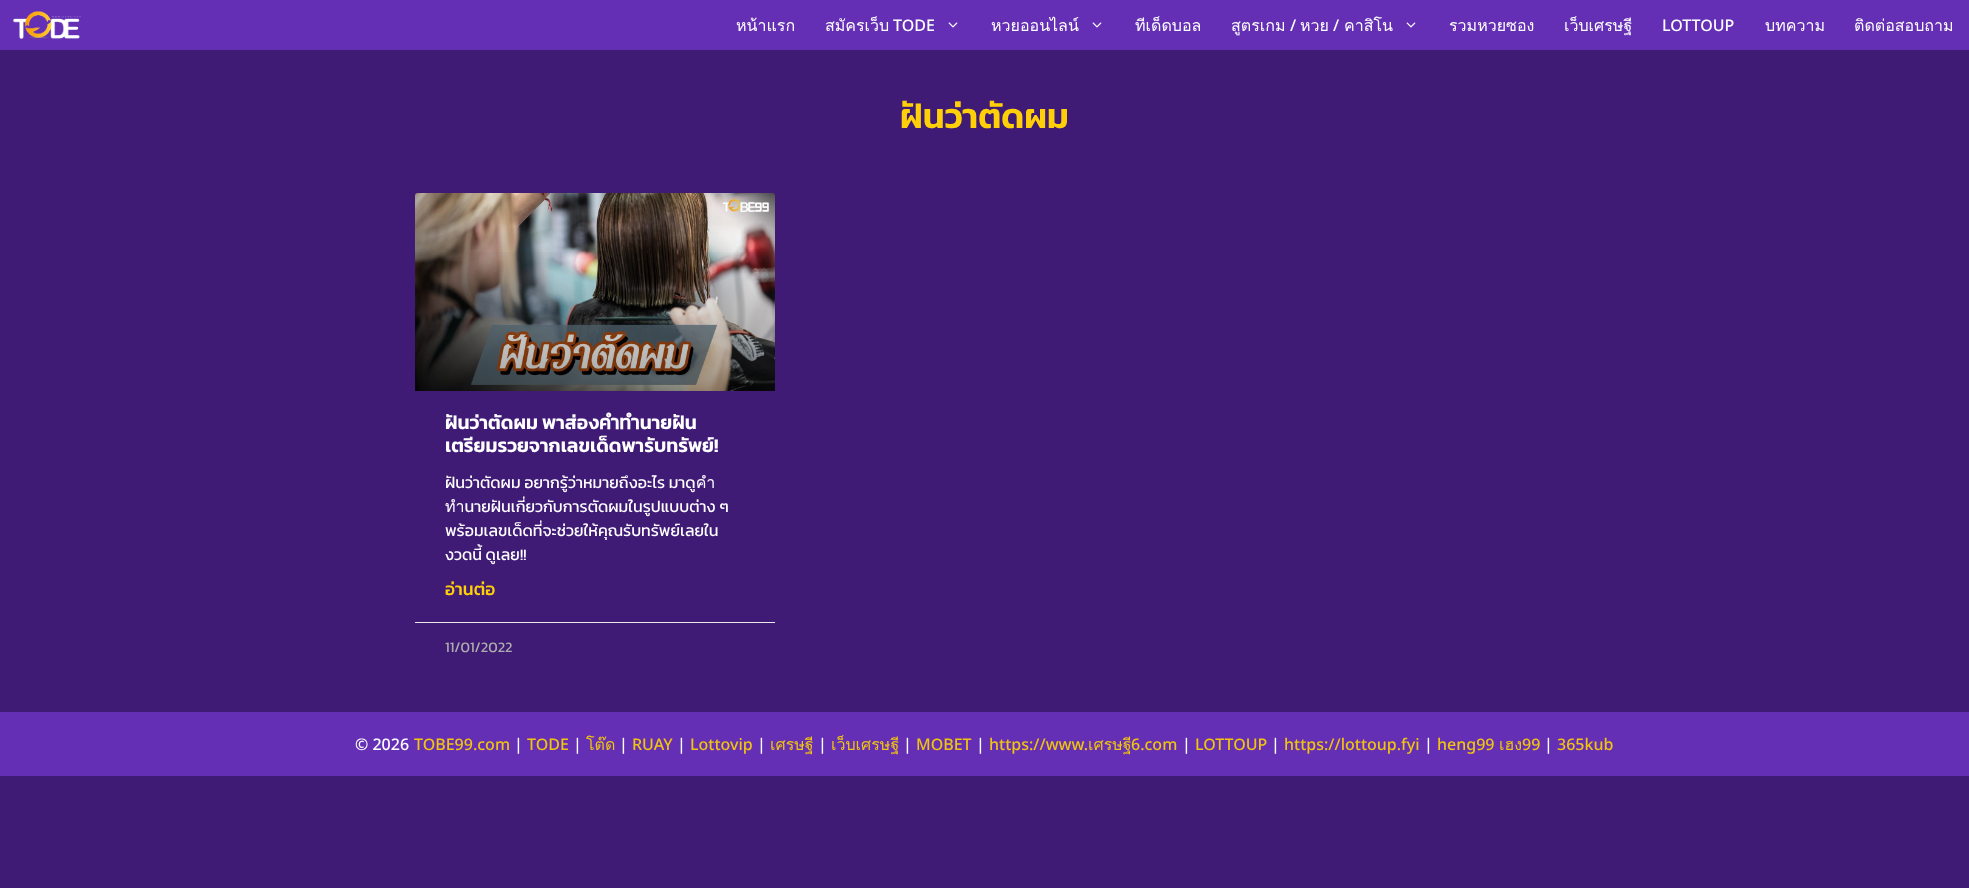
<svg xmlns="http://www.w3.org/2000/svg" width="1969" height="888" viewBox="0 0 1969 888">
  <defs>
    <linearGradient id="g1" gradientUnits="userSpaceOnUse" x1="595" y1="391" x2="595" y2="193"><stop offset="0" stop-color="#000000" stop-opacity="0.35"/><stop offset="0.75" stop-color="#000000" stop-opacity="0"/></linearGradient>
  </defs>
  <rect width="100%" height="100%" fill="#401b76"/>
  <rect x="0" y="0" width="1969" height="50" fill="#642fb4"/>
  <image x="13" y="11" width="68" height="28" href="img1.png"/>
  <text x="736" y="31" font-family="Loma" font-size="16" fill="#ffffff">หน้าแรก</text>
  <text x="825" y="31" font-family="Loma" font-size="16" fill="#ffffff">สมัครเว็บ</text>
  <text x="893" y="31" font-family="Noto Sans" font-size="16" font-weight="500" fill="#ffffff">TODE</text>
  <image x="948" y="22" width="10" height="6" href="img2.png"/>
  <text x="991" y="31" font-family="Loma" font-size="16" fill="#ffffff">หวยออนไลน์</text>
  <image x="1092" y="22" width="10" height="6" href="img2.png"/>
  <text x="1135" y="31" font-family="Loma" font-size="16" fill="#ffffff">ทีเด็ดบอล</text>
  <text x="1231" y="31" font-family="Loma" font-size="16" fill="#ffffff">สูตรเกม</text>
  <text x="1290" y="31" font-family="Noto Sans" font-size="16" font-weight="500" fill="#ffffff">/</text>
  <text x="1300" y="31" font-family="Loma" font-size="16" fill="#ffffff">หวย</text>
  <text x="1333" y="31" font-family="Noto Sans" font-size="16" font-weight="500" fill="#ffffff">/</text>
  <text x="1344" y="31" font-family="Loma" font-size="16" fill="#ffffff">คาสิโน</text>
  <image x="1406" y="22" width="10" height="6" href="img2.png"/>
  <text x="1449" y="31" font-family="Loma" font-size="16" fill="#ffffff">รวมหวยซอง</text>
  <text x="1564" y="31" font-family="Loma" font-size="16" fill="#ffffff">เว็บเศรษฐี</text>
  <text x="1662" y="31" font-family="Noto Sans" font-size="16" font-weight="500" fill="#ffffff">LOTTOUP</text>
  <text x="1765" y="31" font-family="Loma" font-size="16" fill="#ffffff">บทความ</text>
  <text x="1854" y="31" font-family="Loma" font-size="16" fill="#ffffff">ติดต่อสอบถาม</text>
  <text x="900" y="128" font-family="Kanit" font-size="35" font-weight="600" fill="#ffd008">ฝันว่าตัดผม</text>
  <image x="415" y="193" width="360" height="198" href="img3.png"/>
  <rect x="415" y="252" width="360" height="139" fill="url(#g1)"/>
  <text x="445" y="429" font-family="Kanit" font-size="19.25" font-weight="600" fill="#ffffff">ฝันว่าตัดผม พาส่องคำทำนายฝัน</text>
  <text x="445" y="452" font-family="Kanit" font-size="19.25" font-weight="600" fill="#ffffff">เตรียมรวยจากเลขเด็ดพารับทรัพย์!</text>
  <text x="445" y="488" font-family="Kanit" font-size="16" fill="#ffffff">ฝันว่าตัดผม อยากรู้ว่าหมายถึงอะไร มาดูคำ</text>
  <text x="445" y="512" font-family="Kanit" font-size="16" fill="#ffffff">ทำนายฝันเกี่ยวกับการตัดผมในรูปแบบต่าง ๆ</text>
  <text x="445" y="536" font-family="Kanit" font-size="16" fill="#ffffff">พร้อมเลขเด็ดที่จะช่วยให้คุณรับทรัพย์เลยใน</text>
  <text x="445" y="560" font-family="Kanit" font-size="16" fill="#ffffff">งวดนี้ ดูเลย!!</text>
  <text x="445" y="595" font-family="Kanit" font-size="17.5" font-weight="500" fill="#ffd008">อ่านต่อ</text>
  <rect x="415" y="622" width="360" height="1" fill="#eaeaea"/>
  <text x="445" y="652" font-family="Kanit" font-size="14.5" fill="#adadad">11/01/2022</text>
  <rect x="0" y="712" width="1969" height="64" fill="#642fb4"/>
  <text x="355" y="750" font-family="Noto Sans" font-size="16" font-weight="500" fill="#ffffff">© 2026</text>
  <text x="414" y="750" font-family="Noto Sans" font-size="16" font-weight="500" fill="#f1c40f">TOBE99.com</text>
  <text x="514" y="750" font-family="Noto Sans" font-size="16" font-weight="500" fill="#ffffff">|</text>
  <text x="527" y="750" font-family="Noto Sans" font-size="16" font-weight="500" fill="#f1c40f">TODE</text>
  <text x="573" y="750" font-family="Noto Sans" font-size="16" font-weight="500" fill="#ffffff">|</text>
  <text x="586" y="750" font-family="Loma" font-size="16" fill="#f1c40f">โต๊ด</text>
  <text x="619" y="750" font-family="Noto Sans" font-size="16" font-weight="500" fill="#ffffff">|</text>
  <text x="632" y="750" font-family="Noto Sans" font-size="16" font-weight="500" fill="#f1c40f">RUAY</text>
  <text x="677" y="750" font-family="Noto Sans" font-size="16" font-weight="500" fill="#ffffff">|</text>
  <text x="690" y="750" font-family="Noto Sans" font-size="16" font-weight="500" fill="#f1c40f">Lottovip</text>
  <text x="757" y="750" font-family="Noto Sans" font-size="16" font-weight="500" fill="#ffffff">|</text>
  <text x="770" y="750" font-family="Loma" font-size="16" fill="#f1c40f">เศรษฐี</text>
  <text x="818" y="750" font-family="Noto Sans" font-size="16" font-weight="500" fill="#ffffff">|</text>
  <text x="831" y="750" font-family="Loma" font-size="16" fill="#f1c40f">เว็บเศรษฐี</text>
  <text x="903" y="750" font-family="Noto Sans" font-size="16" font-weight="500" fill="#ffffff">|</text>
  <text x="916" y="750" font-family="Noto Sans" font-size="16" font-weight="500" fill="#f1c40f">MOBET</text>
  <text x="976" y="750" font-family="Noto Sans" font-size="16" font-weight="500" fill="#ffffff">|</text>
  <text x="989" y="750" font-family="Noto Sans" font-size="16" font-weight="500" fill="#f1c40f">https://www.</text>
  <text x="1088" y="750" font-family="Loma" font-size="16" fill="#f1c40f">เศรษฐี</text>
  <text x="1131" y="750" font-family="Noto Sans" font-size="16" font-weight="500" fill="#f1c40f">6.com</text>
  <text x="1182" y="750" font-family="Noto Sans" font-size="16" font-weight="500" fill="#ffffff">|</text>
  <text x="1195" y="750" font-family="Noto Sans" font-size="16" font-weight="500" fill="#f1c40f">LOTTOUP</text>
  <text x="1271" y="750" font-family="Noto Sans" font-size="16" font-weight="500" fill="#ffffff">|</text>
  <text x="1284" y="750" font-family="Noto Sans" font-size="16" font-weight="500" fill="#f1c40f">https://lottoup.fyi</text>
  <text x="1424" y="750" font-family="Noto Sans" font-size="16" font-weight="500" fill="#ffffff">|</text>
  <text x="1437" y="750" font-family="Noto Sans" font-size="16" font-weight="500" fill="#f1c40f">heng99</text>
  <text x="1499" y="750" font-family="Loma" font-size="16" fill="#f1c40f">เฮง</text>
  <text x="1522" y="750" font-family="Noto Sans" font-size="16" font-weight="500" fill="#f1c40f">99</text>
  <text x="1544" y="750" font-family="Noto Sans" font-size="16" font-weight="500" fill="#ffffff">|</text>
  <text x="1557" y="750" font-family="Noto Sans" font-size="16" font-weight="500" fill="#f1c40f">365kub</text>
</svg>
